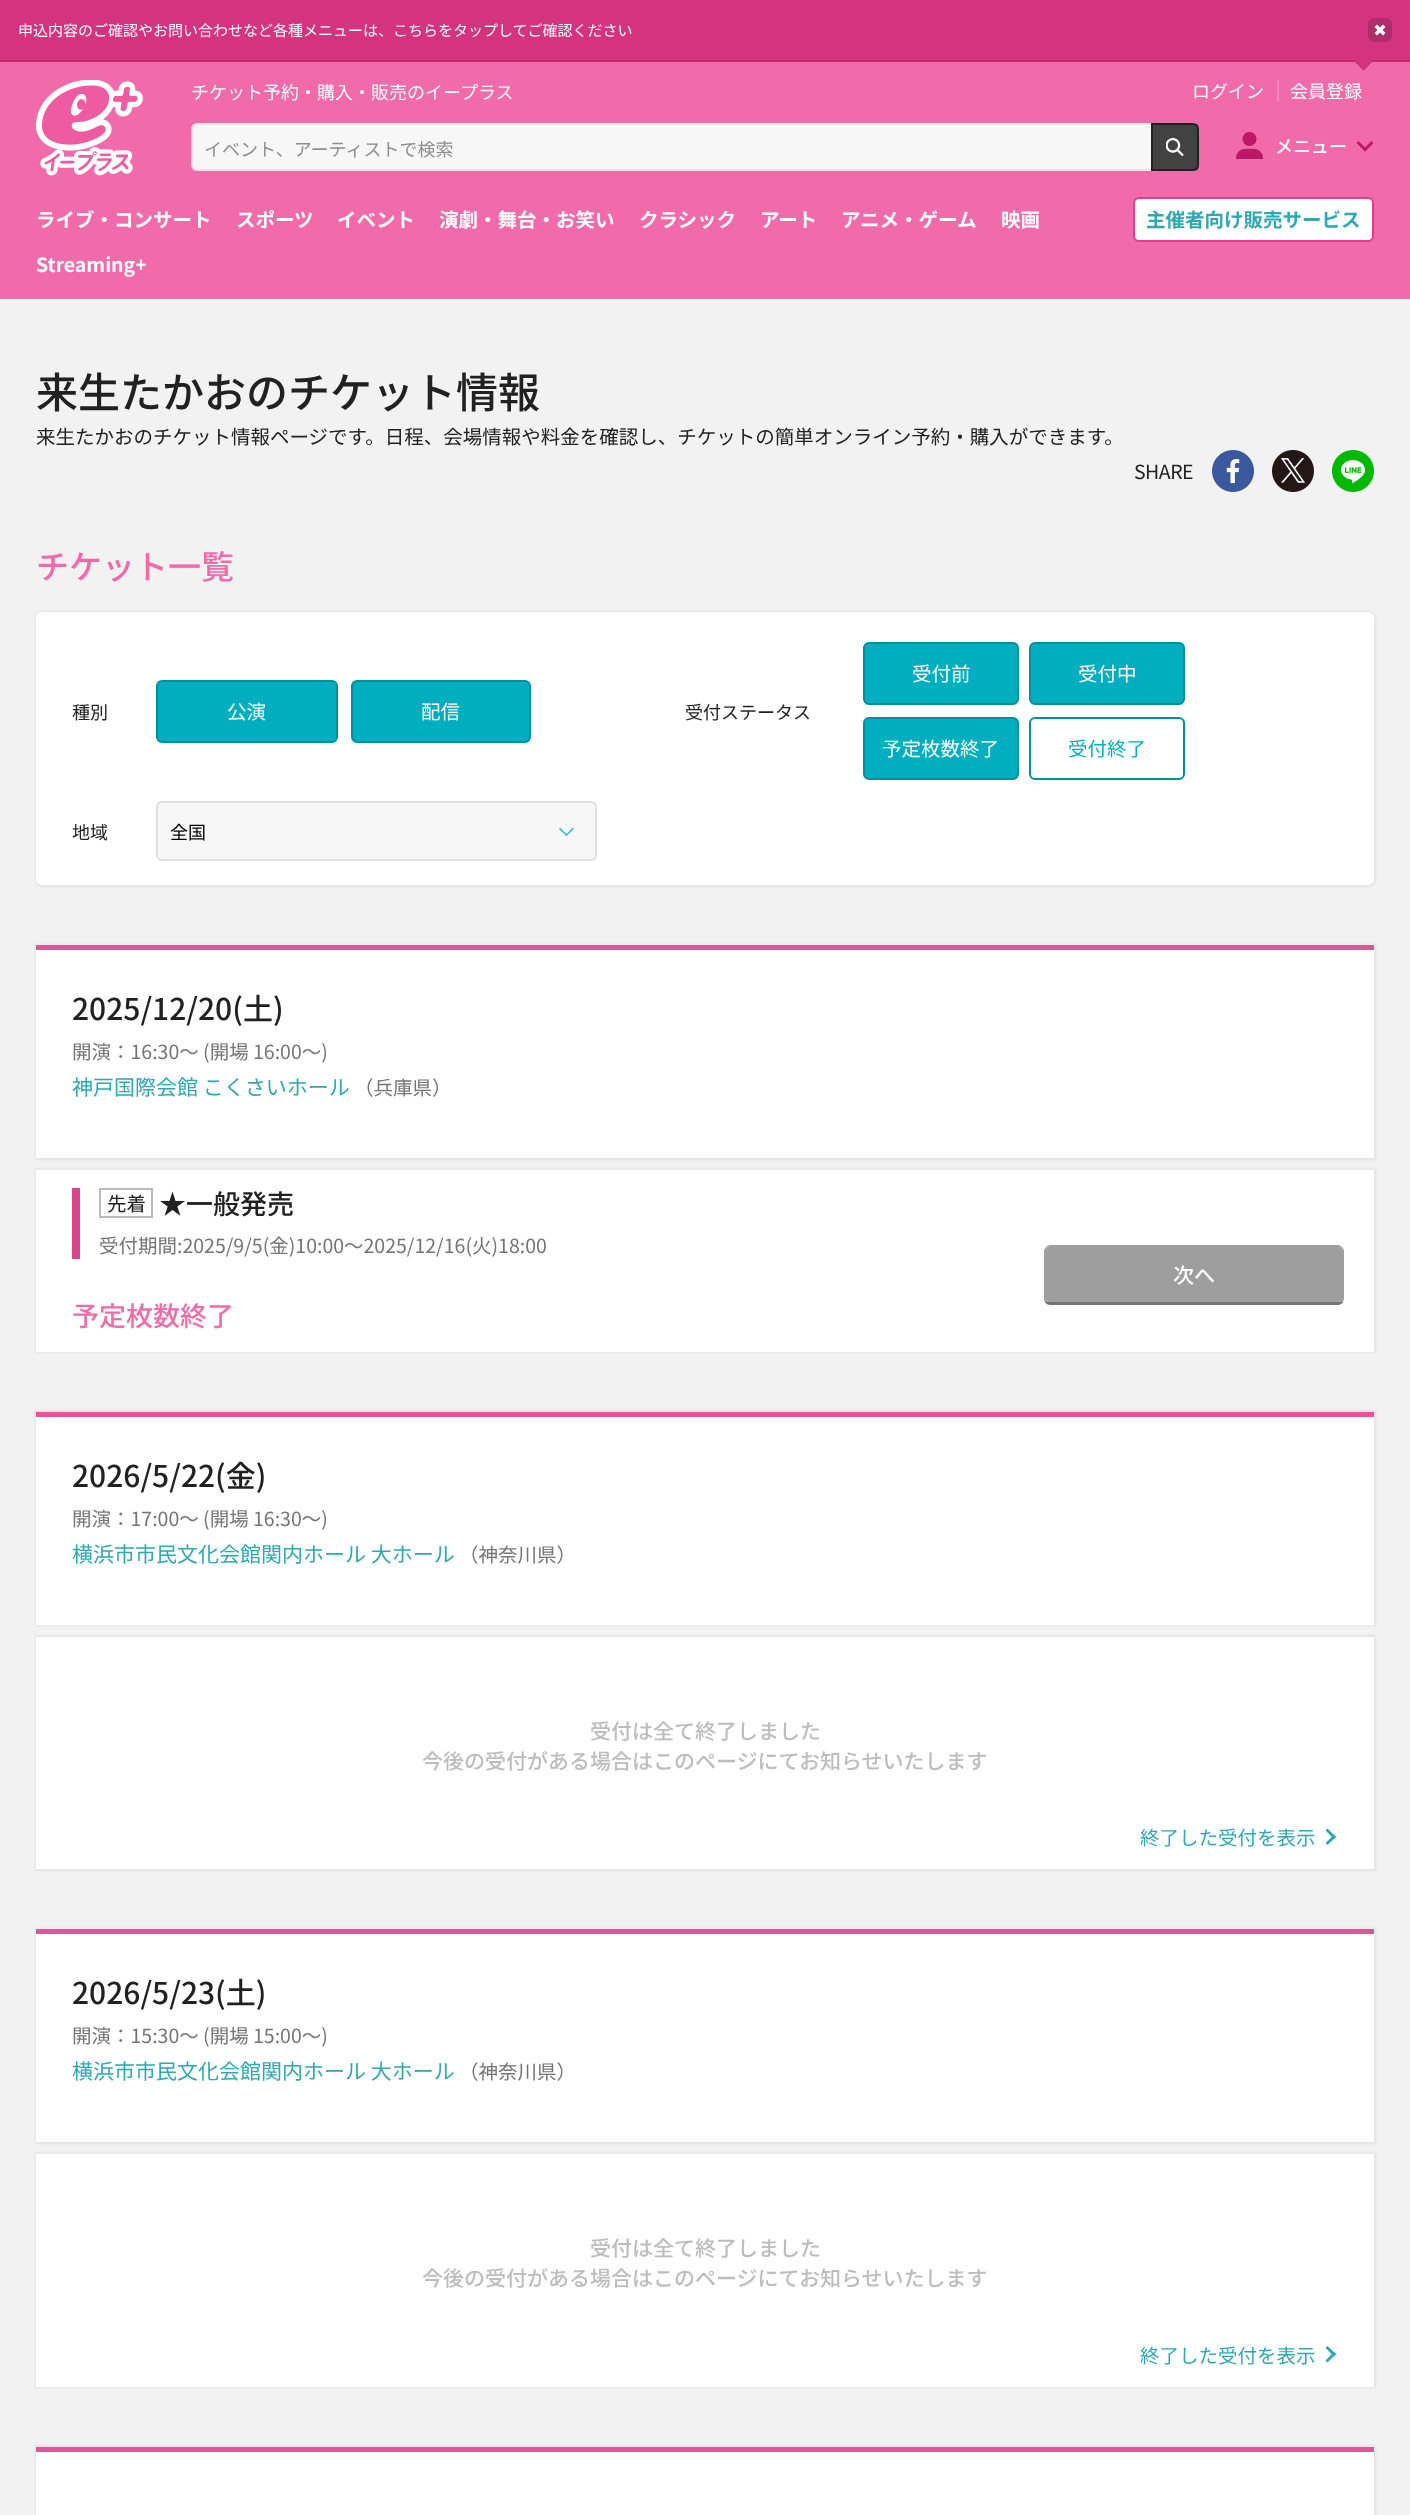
<svg xmlns="http://www.w3.org/2000/svg" width="1410" height="2515" viewBox="0 0 1410 2515">
  <defs>
    <filter id="blur1" x="-50%" y="-200%" width="200%" height="500%"><feGaussianBlur stdDeviation="1"/></filter>
  </defs>
  <rect width="100%" height="100%" fill="#f2f2f2"/>
  <rect x="0" y="0" width="1410" height="60" fill="#d4337f"/>
  <rect x="0" y="60" width="1410" height="2" fill="#c42972"/>
  <text x="18" y="36" font-family="Noto Sans JP" font-size="15" fill="#ffffff">申込内容のご確認やお問い合わせなど各種メニューは、こちらをタップしてご確認ください</text>
  <rect x="1368" y="18" width="24" height="24" rx="6" fill="#ae2d6a"/>
  <path d="M1374.5 27L1377 24.5L1385.5 33L1383 35.5Z" fill="#ffffff"/>
  <path d="M1383 24.5L1385.5 27L1377 35.5L1374.5 33Z" fill="#ffffff"/>
  <rect x="0" y="62" width="1410" height="237" fill="#f16baa"/>
  <path d="M1353 60H1374L1363.5 70.5Z" fill="#c42972"/>
  <path d="M1354.5 60H1372.5L1363.5 69Z" fill="#d4337f"/>
  <image x="36" y="80" width="107" height="96" href="img1.png"/>
  <text x="191" y="99" font-family="Noto Sans JP" font-size="18" fill="#ffffff">チケット予約・購入・販売のイープラス</text>
  <text x="1192" y="98" font-family="Noto Sans JP" font-size="18" fill="#ffffff">ログイン</text>
  <rect x="1277" y="80" width="2" height="21" fill="#f088ba"/>
  <text x="1290" y="98" font-family="Noto Sans JP" font-size="18" fill="#ffffff">会員登録</text>
  <rect x="192" y="124" width="1006" height="46" rx="5" fill="#f7f7f7" stroke="#e5e5e5" stroke-width="2"/>
  <text x="204" y="156" font-family="Noto Sans JP" font-size="18" fill="#8e8e8e">イベント、アーティストで検索</text>
  <path d="M1152 124H1193C1196 124 1198 126 1198 129V165C1198 168 1196 170 1193 170H1152Z" fill="#424242" stroke="#212121" stroke-width="2"/>
  <image x="1166" y="138" width="18" height="18" href="img2.png"/>
  <image x="1236" y="132" width="27" height="27" href="img3.png"/>
  <text x="1275" y="153" font-family="Noto Sans JP" font-size="18" font-weight="500" fill="#ffffff">メニュー</text>
  <path d="M1373.5 143L1365 151.5L1363 149.5L1371.5 141Z" fill="#bd1867"/>
  <path d="M1367 149.5L1365 151.5L1356.5 143L1358.5 141Z" fill="#bd1867"/>
  <text x="36" y="227" font-family="Noto Sans JP" font-size="19.5" font-weight="bold" fill="#ffffff">ライブ・コンサート</text>
  <text x="236" y="227" font-family="Noto Sans JP" font-size="19.5" font-weight="bold" fill="#ffffff">スポーツ</text>
  <text x="337" y="227" font-family="Noto Sans JP" font-size="19.5" font-weight="bold" fill="#ffffff">イベント</text>
  <text x="439" y="227" font-family="Noto Sans JP" font-size="19.5" font-weight="bold" fill="#ffffff">演劇・舞台・お笑い</text>
  <text x="639" y="227" font-family="Noto Sans JP" font-size="19.5" font-weight="bold" fill="#ffffff">クラシック</text>
  <text x="760" y="227" font-family="Noto Sans JP" font-size="19.5" font-weight="bold" fill="#ffffff">アート</text>
  <text x="841" y="227" font-family="Noto Sans JP" font-size="19.5" font-weight="bold" fill="#ffffff">アニメ・ゲーム</text>
  <text x="1001" y="227" font-family="Noto Sans JP" font-size="19.5" font-weight="bold" fill="#ffffff">映画</text>
  <text x="36" y="272" font-family="Noto Sans JP" font-size="19.5" font-weight="bold" fill="#ffffff">Streaming+</text>
  <rect x="1134" y="198" width="239" height="43" rx="5" fill="#ffffff" stroke="#e03d8c" stroke-width="2"/>
  <text x="1146" y="227" font-family="Noto Sans JP" font-size="19.5" font-weight="bold" fill="#2fa8b3">主催者向け販売サービス</text>
  <text x="36" y="408" font-family="Noto Sans JP" font-size="42" font-weight="500" fill="#212121">来生たかおのチケット情報</text>
  <text x="36" y="444" font-family="Noto Sans JP" font-size="19.5" fill="#212121">来生たかおのチケット情報ページです。日程、会場情報や料金を確認し、チケットの簡単オンライン予約・購入ができます。</text>
  <text x="1134" y="479" font-family="Noto Sans JP" font-size="19.5" letter-spacing="-0.5" fill="#212121">SHARE</text>
  <image x="1212" y="450" width="42" height="42" href="img4.png"/>
  <image x="1272" y="450" width="42" height="42" href="img5.png"/>
  <image x="1332" y="450" width="42" height="42" href="img6.png"/>
  <text x="36" y="579" font-family="Noto Sans JP" font-size="33" font-weight="500" fill="#f16baa">チケット一覧</text>
  <rect x="35" y="611" width="1341" height="276" rx="8" fill="#000000" fill-opacity="0.06" filter="url(#blur1)"/>
  <rect x="36" y="612" width="1338" height="273" rx="6" fill="#ffffff"/>
  <text x="72" y="719" font-family="Noto Sans JP" font-size="18" fill="#212121">種別</text>
  <rect x="157" y="681" width="180" height="61" rx="5" fill="#00afbf" stroke="#008f9c" stroke-width="2"/>
  <text x="227" y="719" font-family="Noto Sans JP" font-size="19.5" fill="#ffffff">公演</text>
  <rect x="352" y="681" width="178" height="61" rx="5" fill="#00afbf" stroke="#008f9c" stroke-width="2"/>
  <text x="421" y="719" font-family="Noto Sans JP" font-size="19.5" fill="#ffffff">配信</text>
  <text x="685" y="719" font-family="Noto Sans JP" font-size="18" fill="#212121">受付ステータス</text>
  <rect x="864" y="643" width="154" height="61" rx="5" fill="#00afbf" stroke="#008f9c" stroke-width="2"/>
  <text x="912" y="681" font-family="Noto Sans JP" font-size="19.5" fill="#ffffff">受付前</text>
  <rect x="1030" y="643" width="154" height="61" rx="5" fill="#00afbf" stroke="#008f9c" stroke-width="2"/>
  <text x="1078" y="681" font-family="Noto Sans JP" font-size="19.5" fill="#ffffff">受付中</text>
  <rect x="864" y="718" width="154" height="61" rx="5" fill="#00afbf" stroke="#008f9c" stroke-width="2"/>
  <text x="882" y="756" font-family="Noto Sans JP" font-size="19.5" fill="#ffffff">予定枚数終了</text>
  <rect x="1030" y="718" width="154" height="61" rx="5" fill="none" stroke="#008f9c" stroke-width="2"/>
  <text x="1068" y="756" font-family="Noto Sans JP" font-size="19.5" fill="#00afbf">受付終了</text>
  <text x="72" y="839" font-family="Noto Sans JP" font-size="18" fill="#212121">地域</text>
  <rect x="157" y="802" width="439" height="58" rx="5" fill="#f7f7f7" stroke="#e0e0e0" stroke-width="2"/>
  <text x="170" y="839" font-family="Noto Sans JP" font-size="18" fill="#000000">全国</text>
  <path d="M574 829L566.5 836L565.5 835L573 827.5Z" fill="#3dbcc7"/>
  <path d="M567.5 835L566.5 836L559 829L560 827.5Z" fill="#3dbcc7"/>
  <rect x="35" y="944" width="1341" height="216" fill="#000000" fill-opacity="0.06" filter="url(#blur1)"/>
  <rect x="36" y="950" width="1338" height="208" fill="#ffffff"/>
  <rect x="36" y="945" width="1338" height="5" fill="#e85298"/>
  <text x="72" y="1020" font-family="Noto Sans JP" font-size="30" font-weight="500" fill="#212121">2025/12/20(土)</text>
  <text x="72" y="1059" font-family="Noto Sans JP" font-size="19.5" fill="#757575">開演：16:30～ (開場 16:00～)</text>
  <text x="72" y="1095" font-family="Noto Sans JP" font-size="21" fill="#2fa8b3">神戸国際会館 こくさいホール</text>
  <text x="354" y="1095" font-family="Noto Sans JP" font-size="19.5" fill="#757575">（兵庫県）</text>
  <rect x="35" y="1169" width="1341" height="184" fill="#000000" fill-opacity="0.06" filter="url(#blur1)"/>
  <rect x="36" y="1170" width="1338" height="182" fill="#ffffff"/>
  <rect x="72" y="1188" width="8" height="71" fill="#d9458b"/>
  <rect x="100" y="1189" width="52" height="28" fill="none" stroke="#bababa" stroke-width="2"/>
  <text x="107" y="1211" font-family="Noto Sans JP" font-size="19.5" fill="#212121">先着</text>
  <text x="159" y="1214" font-family="Noto Sans JP" font-size="27" font-weight="500" fill="#212121">★一般発売</text>
  <text x="99" y="1253" font-family="Noto Sans JP" font-size="19.5" fill="#757575">受付期間:2025/9/5(金)10:00～2025/12/16(火)18:00</text>
  <path d="M1050 1246H1338C1340 1246 1342 1249 1342 1251V1299C1342 1301 1340 1302 1338 1302H1050C1048 1302 1046 1301 1046 1299V1251C1046 1249 1048 1246 1050 1246Z" fill="#9e9e9e"/>
  <path d="M1050 1245C1048 1245 1047 1246 1046 1247L1047 1248L1049 1246H1338C1339 1246 1340 1247 1341 1248L1342 1247C1341 1246 1340 1245 1338 1245Z" fill="#9e9e9e"/>
  <path d="M1344 1299V1251C1344 1250 1343 1248 1342 1247L1341 1248L1342 1251V1300L1343 1302Z" fill="#9e9e9e"/>
  <path d="M1050 1305H1338C1340 1305 1342 1304 1343 1302L1342 1300L1340 1302H1050C1049 1302 1047 1302 1046 1300L1045 1302C1046 1304 1048 1305 1050 1305Z" fill="#757575"/>
  <path d="M1044 1251V1299C1044 1300 1044 1301 1045 1302L1046 1300V1251L1047 1248L1046 1247C1045 1248 1044 1250 1044 1251Z" fill="#9e9e9e"/>
  <text x="1173" y="1283" font-family="Noto Sans JP" font-size="21" font-weight="500" fill="#ffffff">次へ</text>
  <text x="72" y="1326" font-family="Noto Sans JP" font-size="27" font-weight="500" fill="#f16baa">予定枚数終了</text>
  <rect x="35" y="1410" width="1341" height="216" fill="#000000" fill-opacity="0.06" filter="url(#blur1)"/>
  <rect x="36" y="1417" width="1338" height="208" fill="#ffffff"/>
  <rect x="36" y="1412" width="1338" height="5" fill="#e85298"/>
  <text x="72" y="1487" font-family="Noto Sans JP" font-size="30" font-weight="500" fill="#212121">2026/5/22(金)</text>
  <text x="72" y="1526" font-family="Noto Sans JP" font-size="19.5" fill="#757575">開演：17:00～ (開場 16:30～)</text>
  <text x="72" y="1562" font-family="Noto Sans JP" font-size="21" fill="#2fa8b3">横浜市市民文化会館関内ホール 大ホール</text>
  <text x="459" y="1562" font-family="Noto Sans JP" font-size="19.5" fill="#757575">（神奈川県）</text>
  <rect x="35" y="1635" width="1341" height="236" fill="#000000" fill-opacity="0.06" filter="url(#blur1)"/>
  <rect x="36" y="1637" width="1338" height="232" fill="#ffffff"/>
  <text x="590" y="1739" font-family="Noto Sans JP" font-size="21" font-weight="500" fill="#bdbdbd">受付は全て終了しました</text>
  <text x="422" y="1769" font-family="Noto Sans JP" font-size="21" font-weight="500" fill="#bdbdbd">今後の受付がある場合はこのページにてお知らせいたします</text>
  <text x="1140" y="1845" font-family="Noto Sans JP" font-size="19.5" fill="#2fa8b3">終了した受付を表示</text>
  <path d="M1327.5 1828.5L1336 1837L1334 1839L1325.5 1830.5Z" fill="#2fa8b3"/>
  <path d="M1334 1834.5L1336 1837L1327.5 1845L1325.5 1843Z" fill="#2fa8b3"/>
  <rect x="35" y="1928" width="1341" height="216" fill="#000000" fill-opacity="0.06" filter="url(#blur1)"/>
  <rect x="36" y="1934" width="1338" height="208" fill="#ffffff"/>
  <rect x="36" y="1929" width="1338" height="5" fill="#e85298"/>
  <text x="72" y="2004" font-family="Noto Sans JP" font-size="30" font-weight="500" fill="#212121">2026/5/23(土)</text>
  <text x="72" y="2043" font-family="Noto Sans JP" font-size="19.5" fill="#757575">開演：15:30～ (開場 15:00～)</text>
  <text x="72" y="2079" font-family="Noto Sans JP" font-size="21" fill="#2fa8b3">横浜市市民文化会館関内ホール 大ホール</text>
  <text x="459" y="2079" font-family="Noto Sans JP" font-size="19.5" fill="#757575">（神奈川県）</text>
  <rect x="35" y="2153" width="1341" height="235" fill="#000000" fill-opacity="0.06" filter="url(#blur1)"/>
  <rect x="36" y="2154" width="1338" height="233" fill="#ffffff"/>
  <text x="590" y="2256" font-family="Noto Sans JP" font-size="21" font-weight="500" fill="#bdbdbd">受付は全て終了しました</text>
  <text x="422" y="2286" font-family="Noto Sans JP" font-size="21" font-weight="500" fill="#bdbdbd">今後の受付がある場合はこのページにてお知らせいたします</text>
  <text x="1140" y="2363" font-family="Noto Sans JP" font-size="19.5" fill="#2fa8b3">終了した受付を表示</text>
  <path d="M1327.5 2346L1336 2354L1334 2356.5L1325.5 2348Z" fill="#2fa8b3"/>
  <path d="M1334 2352L1336 2354L1327.5 2362.5L1325.5 2360.5Z" fill="#2fa8b3"/>
  <rect x="35" y="2445" width="1341" height="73" fill="#000000" fill-opacity="0.06" filter="url(#blur1)"/>
  <rect x="36" y="2452" width="1338" height="63" fill="#ffffff"/>
  <rect x="36" y="2447" width="1338" height="5" fill="#e85298"/>
</svg>
